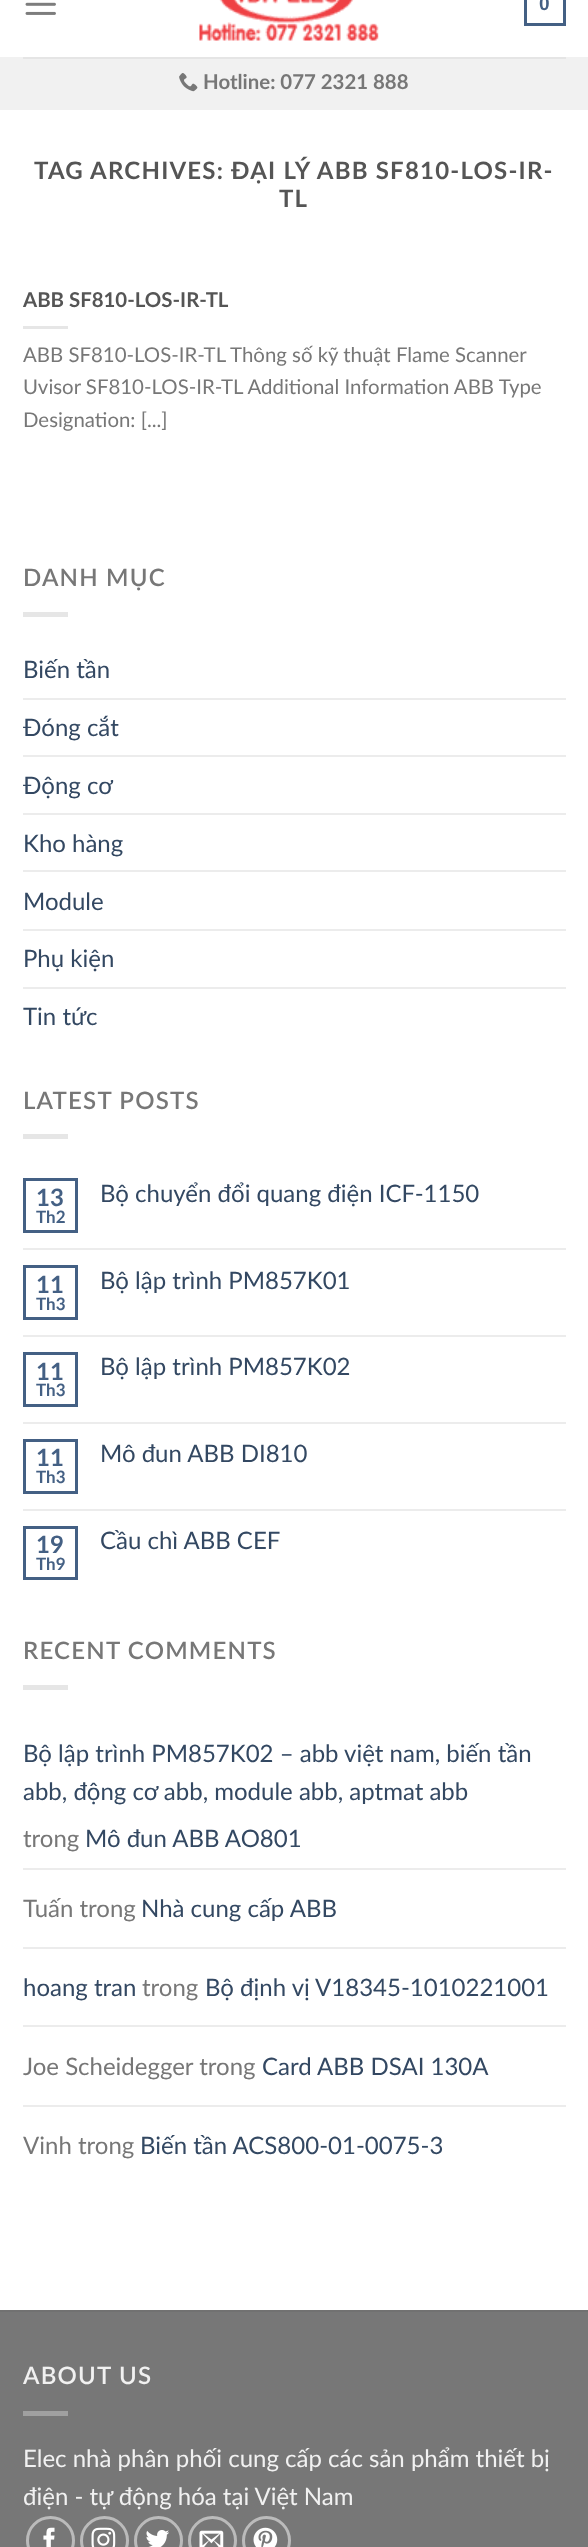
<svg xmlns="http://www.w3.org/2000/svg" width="588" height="2547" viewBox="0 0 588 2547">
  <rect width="100%" height="100%" fill="#ffffff"/>
  <image x="25" y="2" width="31" height="13" href="img1.png"/>
  <image x="199" y="0" width="180" height="41" href="img2.png"/>
  <rect x="525.5" y="-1.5" width="39" height="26" fill="none" stroke="#446084" stroke-width="3"/>
  <text x="539" y="10" font-family="Liberation Sans" font-size="19" font-weight="bold" fill="#446084">0</text>
  <rect x="0" y="57" width="588" height="53" fill="#f1f1f1"/>
  <rect x="23" y="57" width="543" height="2" fill="#e5e5e5"/>
  <image x="179" y="73" width="19" height="19" href="img3.png"/>
  <text x="203" y="89" font-family="Lato" font-size="20.4" font-weight="bold" fill="#777777">Hotline: 077 2321 888</text>
  <text x="34" y="179" font-family="Lato" font-size="24" font-weight="bold" letter-spacing="1.2" fill="#555555">TAG ARCHIVES: ĐẠI LÝ ABB SF810-LOS-IR-</text>
  <text x="279" y="207" font-family="Lato" font-size="24" font-weight="bold" letter-spacing="1.2" fill="#555555">TL</text>
  <text x="23" y="307" font-family="Lato" font-size="20.4" font-weight="bold" fill="#555555">ABB SF810-LOS-IR-TL</text>
  <rect x="23" y="326" width="45" height="3" fill="#e6e6e6"/>
  <text x="23" y="362" font-family="Lato" font-size="20.4" fill="#777777">ABB SF810-LOS-IR-TL Thông số kỹ thuật Flame Scanner</text>
  <text x="23" y="394" font-family="Lato" font-size="20.4" fill="#777777">Uvisor SF810-LOS-IR-TL Additional Information ABB Type</text>
  <text x="23" y="427" font-family="Lato" font-size="20.4" fill="#777777">Designation: [...]</text>
  <text x="23" y="586" font-family="Lato" font-size="24" font-weight="600" letter-spacing="1.2" fill="#777777">DANH MỤC</text>
  <rect x="23" y="612" width="45" height="5" fill="#e6e6e6"/>
  <text x="23" y="678" font-family="Lato" font-size="24" fill="#334862">Biến tần</text>
  <rect x="23" y="698" width="543" height="2" fill="#ececec"/>
  <text x="23" y="736" font-family="Lato" font-size="24" fill="#334862">Đóng cắt</text>
  <rect x="23" y="755" width="543" height="2" fill="#ececec"/>
  <text x="23" y="794" font-family="Lato" font-size="24" fill="#334862">Động cơ</text>
  <rect x="23" y="813" width="543" height="2" fill="#ececec"/>
  <text x="23" y="852" font-family="Lato" font-size="24" fill="#334862">Kho hàng</text>
  <rect x="23" y="870" width="543" height="2" fill="#ececec"/>
  <text x="23" y="910" font-family="Lato" font-size="24" fill="#334862">Module</text>
  <rect x="23" y="929" width="543" height="2" fill="#ececec"/>
  <text x="23" y="967" font-family="Lato" font-size="24" fill="#334862">Phụ kiện</text>
  <rect x="23" y="987" width="543" height="2" fill="#ececec"/>
  <text x="23" y="1025" font-family="Lato" font-size="24" fill="#334862">Tin tức</text>
  <text x="23" y="1109" font-family="Lato" font-size="24" font-weight="600" letter-spacing="1.2" fill="#777777">LATEST POSTS</text>
  <rect x="23" y="1134" width="45" height="5" fill="#e6e6e6"/>
  <rect x="24.5" y="1179.5" width="52" height="52" fill="none" stroke="#446084" stroke-width="3"/>
  <text x="36" y="1206" font-family="Lato" font-size="24" font-weight="bold" fill="#446084">13</text>
  <text x="36" y="1223" font-family="Lato" font-size="17" font-weight="bold" fill="#446084">Th2</text>
  <text x="100" y="1202" font-family="Lato" font-size="24" fill="#334862">Bộ chuyển đổi quang điện ICF-1150</text>
  <rect x="23" y="1248" width="543" height="2" fill="#ececec"/>
  <rect x="24.5" y="1266.5" width="52" height="52" fill="none" stroke="#446084" stroke-width="3"/>
  <text x="36" y="1293" font-family="Lato" font-size="24" font-weight="bold" fill="#446084">11</text>
  <text x="36" y="1310" font-family="Lato" font-size="17" font-weight="bold" fill="#446084">Th3</text>
  <text x="100" y="1289" font-family="Lato" font-size="24" fill="#334862">Bộ lập trình PM857K01</text>
  <rect x="23" y="1335" width="543" height="2" fill="#ececec"/>
  <rect x="24.5" y="1353.5" width="52" height="52" fill="none" stroke="#446084" stroke-width="3"/>
  <text x="36" y="1380" font-family="Lato" font-size="24" font-weight="bold" fill="#446084">11</text>
  <text x="36" y="1396" font-family="Lato" font-size="17" font-weight="bold" fill="#446084">Th3</text>
  <text x="100" y="1375" font-family="Lato" font-size="24" fill="#334862">Bộ lập trình PM857K02</text>
  <rect x="23" y="1422" width="543" height="2" fill="#ececec"/>
  <rect x="24.5" y="1440.5" width="52" height="52" fill="none" stroke="#446084" stroke-width="3"/>
  <text x="36" y="1466" font-family="Lato" font-size="24" font-weight="bold" fill="#446084">11</text>
  <text x="36" y="1483" font-family="Lato" font-size="17" font-weight="bold" fill="#446084">Th3</text>
  <text x="100" y="1462" font-family="Lato" font-size="24" fill="#334862">Mô đun ABB DI810</text>
  <rect x="23" y="1509" width="543" height="2" fill="#ececec"/>
  <rect x="24.5" y="1527.5" width="52" height="51" fill="none" stroke="#446084" stroke-width="3"/>
  <text x="36" y="1553" font-family="Lato" font-size="24" font-weight="bold" fill="#446084">19</text>
  <text x="36" y="1570" font-family="Lato" font-size="17" font-weight="bold" fill="#446084">Th9</text>
  <text x="100" y="1549" font-family="Lato" font-size="24" fill="#334862">Cầu chì ABB CEF</text>
  <text x="23" y="1659" font-family="Lato" font-size="24" font-weight="600" letter-spacing="1.2" fill="#777777">RECENT COMMENTS</text>
  <rect x="23" y="1685" width="45" height="5" fill="#e6e6e6"/>
  <text x="23" y="1762" font-family="Lato" font-size="24" fill="#334862">Bộ lập trình PM857K02 – abb việt nam, biến tần</text>
  <text x="23" y="1800" font-family="Lato" font-size="24" fill="#334862">abb, động cơ abb, module abb, aptmat abb</text>
  <text x="23" y="1847" font-family="Lato" font-size="24" fill="#777777">trong</text>
  <text x="85" y="1847" font-family="Lato" font-size="24" fill="#334862">Mô đun ABB AO801</text>
  <rect x="23" y="1868" width="543" height="2" fill="#ececec"/>
  <text x="23" y="1917" font-family="Lato" font-size="24" fill="#777777">Tuấn trong</text>
  <text x="141" y="1917" font-family="Lato" font-size="24" fill="#334862">Nhà cung cấp ABB</text>
  <rect x="23" y="1947" width="543" height="2" fill="#ececec"/>
  <text x="23" y="1996" font-family="Lato" font-size="24" fill="#334862">hoang tran</text>
  <text x="142" y="1996" font-family="Lato" font-size="24" fill="#777777">trong</text>
  <text x="205" y="1996" font-family="Lato" font-size="24" fill="#334862">Bộ định vị V18345-1010221001</text>
  <rect x="23" y="2025" width="543" height="2" fill="#ececec"/>
  <text x="23" y="2075" font-family="Lato" font-size="24" fill="#777777">Joe Scheidegger trong</text>
  <text x="262" y="2075" font-family="Lato" font-size="24" fill="#334862">Card ABB DSAI 130A</text>
  <rect x="23" y="2105" width="543" height="2" fill="#ececec"/>
  <text x="23" y="2154" font-family="Lato" font-size="24" fill="#777777">Vinh trong</text>
  <text x="140" y="2154" font-family="Lato" font-size="24" fill="#334862">Biến tần ACS800-01-0075-3</text>
  <rect x="0" y="2312" width="588" height="235" fill="#777777"/>
  <rect x="0" y="2310" width="588" height="2" fill="#717171"/>
  <text x="23" y="2384" font-family="Lato" font-size="24" font-weight="600" letter-spacing="1.2" fill="#f1f1f1">ABOUT US</text>
  <rect x="23" y="2411" width="45" height="5" fill="#a0a0a0"/>
  <text x="23" y="2467" font-family="Lato" font-size="24" fill="#f1f1f1">Elec nhà phân phối cung cấp các sản phẩm thiết bị</text>
  <text x="23" y="2505" font-family="Lato" font-size="24" fill="#f1f1f1">điện - tự động hóa tại Việt Nam</text>
  <circle cx="50.5" cy="2540.5" r="23" fill="none" stroke="#bbbbbb" stroke-width="3"/>
  <image x="43" y="2527" width="12" height="20" href="img4.png"/>
  <circle cx="104.5" cy="2540.5" r="23" fill="none" stroke="#bbbbbb" stroke-width="3"/>
  <image x="91" y="2527" width="25" height="20" href="img5.png"/>
  <circle cx="158.5" cy="2540.5" r="23" fill="none" stroke="#bbbbbb" stroke-width="3"/>
  <image x="146" y="2530" width="23" height="17" href="img6.png"/>
  <circle cx="212.5" cy="2540.5" r="23" fill="none" stroke="#bbbbbb" stroke-width="3"/>
  <image x="199" y="2530" width="25" height="17" href="img7.png"/>
  <circle cx="266.5" cy="2540.5" r="23" fill="none" stroke="#bbbbbb" stroke-width="3"/>
  <image x="253" y="2527" width="25" height="20" href="img8.png"/>
</svg>
